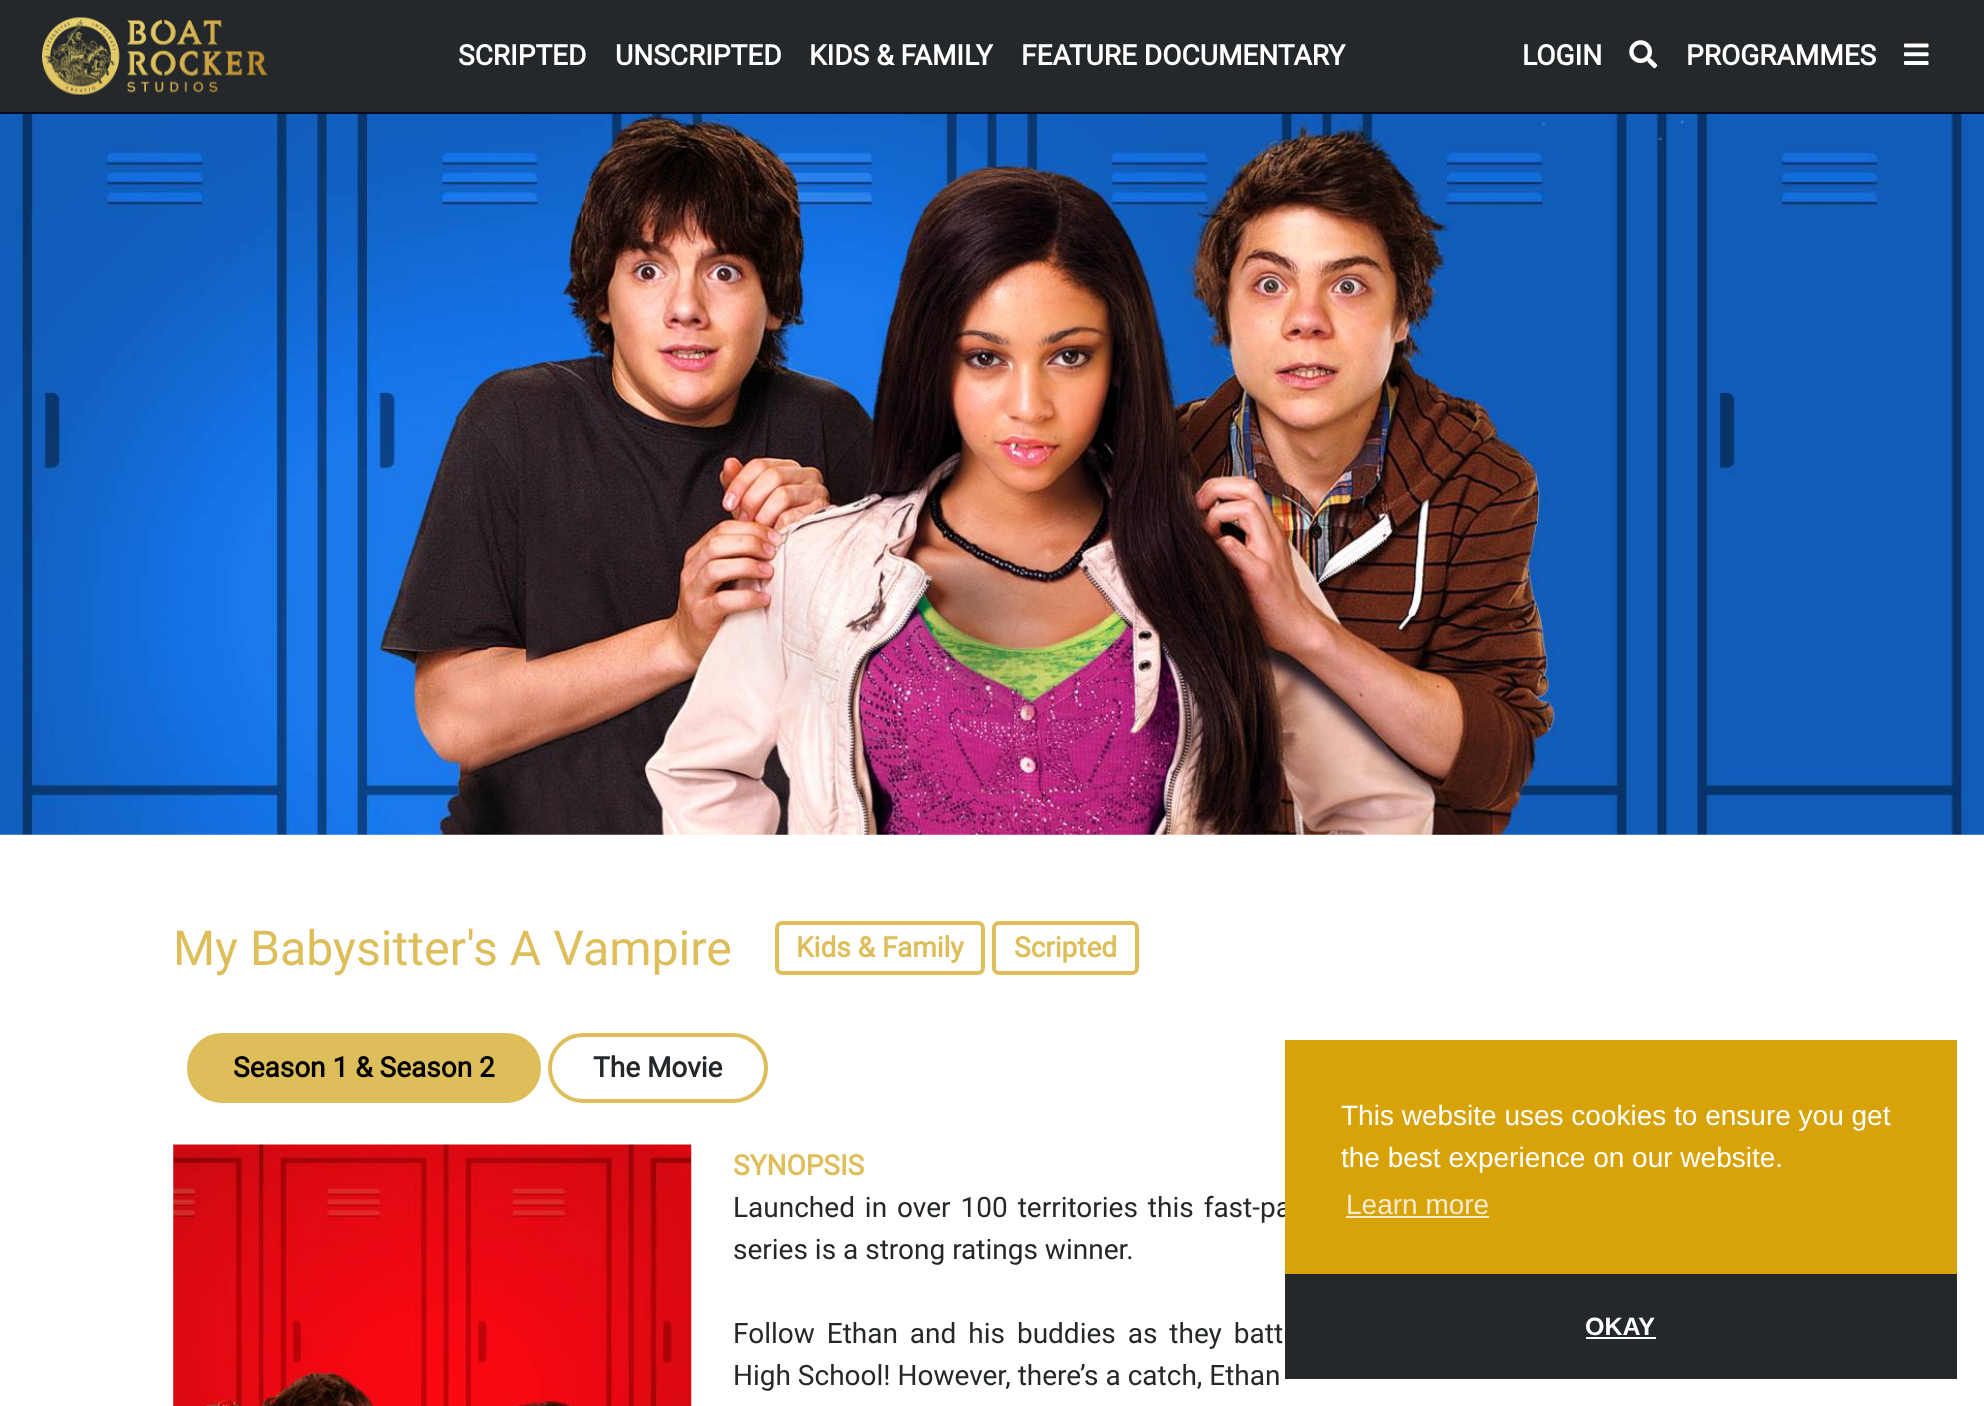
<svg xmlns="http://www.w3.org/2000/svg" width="1984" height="1406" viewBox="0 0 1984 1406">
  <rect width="100%" height="100%" fill="#ffffff"/>
  <rect x="0" y="0" width="1984" height="112" fill="#25282a"/>
  <rect x="0" y="112" width="1984" height="2" fill="#050a1e"/>
  <image x="42" y="17" width="226" height="78" href="img1.png"/>
  <text x="458" y="65" font-family="Roboto" font-size="28" font-weight="bold" fill="#ffffff">SCRIPTED</text>
  <text x="615" y="65" font-family="Roboto" font-size="28" font-weight="bold" fill="#ffffff">UNSCRIPTED</text>
  <text x="809" y="65" font-family="Roboto" font-size="28" font-weight="bold" fill="#ffffff">KIDS &amp; FAMILY</text>
  <text x="1021" y="65" font-family="Roboto" font-size="28" font-weight="bold" fill="#ffffff">FEATURE DOCUMENTARY</text>
  <text x="1522" y="65" font-family="Roboto" font-size="28" font-weight="bold" fill="#ffffff">LOGIN</text>
  <image x="1629" y="40" width="29" height="29" href="img2.png"/>
  <text x="1686" y="65" font-family="Roboto" font-size="28" font-weight="bold" fill="#ffffff">PROGRAMMES</text>
  <image x="1904" y="43" width="25" height="22" href="img3.png"/>
  <image x="0" y="114" width="1984" height="721" href="img4.png"/>
  <text x="173" y="965" font-family="Roboto" font-size="48.25" fill="#debe5a">My Babysitter's A Vampire</text>
  <rect x="777" y="923" width="206" height="50" rx="5" fill="none" stroke="#debe5a" stroke-width="4"/>
  <text x="796" y="957" font-family="Roboto" font-size="28" font-weight="bold" fill="#debe5a">Kids &amp; Family</text>
  <rect x="994" y="923" width="143" height="50" rx="5" fill="none" stroke="#debe5a" stroke-width="4"/>
  <text x="1014" y="957" font-family="Roboto" font-size="28" font-weight="bold" fill="#debe5a">Scripted</text>
  <rect x="189" y="1035" width="350" height="66" rx="33" fill="#debe5a" stroke="#debe5a" stroke-width="4"/>
  <text x="233" y="1077" font-family="Roboto" font-size="28" font-weight="bold" fill="#000000">Season 1 &amp; Season 2</text>
  <rect x="550" y="1035" width="216" height="66" rx="33" fill="none" stroke="#debe5a" stroke-width="4"/>
  <text x="593" y="1077" font-family="Roboto" font-size="28" font-weight="bold" fill="#25282a">The Movie</text>
  <image x="173" y="1144" width="519" height="262" href="img5.png"/>
  <text x="733" y="1175" font-family="Roboto" font-size="28" font-weight="bold" fill="#debe5a">SYNOPSIS</text>
  <text x="733" y="1217" word-spacing="3" font-family="Roboto" font-size="28" fill="#25282a">Launched in over 100 territories this fast-pa</text>
  <text x="733" y="1259" font-family="Roboto" font-size="28" fill="#25282a">series is a strong ratings winner.</text>
  <text x="733" y="1343" word-spacing="5" font-family="Roboto" font-size="28" fill="#25282a">Follow Ethan and his buddies as they batt</text>
  <text x="733" y="1385" font-family="Roboto" font-size="28" fill="#25282a">High School! However, there’s a catch, Ethan</text>
  <rect x="1285" y="1040" width="672" height="234" fill="#d7a308"/>
  <text x="1341" y="1125" font-family="Liberation Sans" font-size="28" fill="#ffffff">This website uses cookies to ensure you get</text>
  <text x="1341" y="1167" font-family="Liberation Sans" font-size="28" fill="#ffffff">the best experience on our website.</text>
  <text x="1346" y="1214" font-family="Liberation Sans" font-size="28" fill="#f7edce">Learn more</text>
  <rect x="1346" y="1216" width="143" height="2" fill="#f7edce"/>
  <rect x="1285" y="1274" width="672" height="105" fill="#25282a"/>
  <text x="1585" y="1335" font-family="Liberation Sans" font-size="25" font-weight="bold" fill="#ffffff">OKAY</text>
  <rect x="1586" y="1337" width="70" height="2" fill="#ffffff"/>
</svg>
